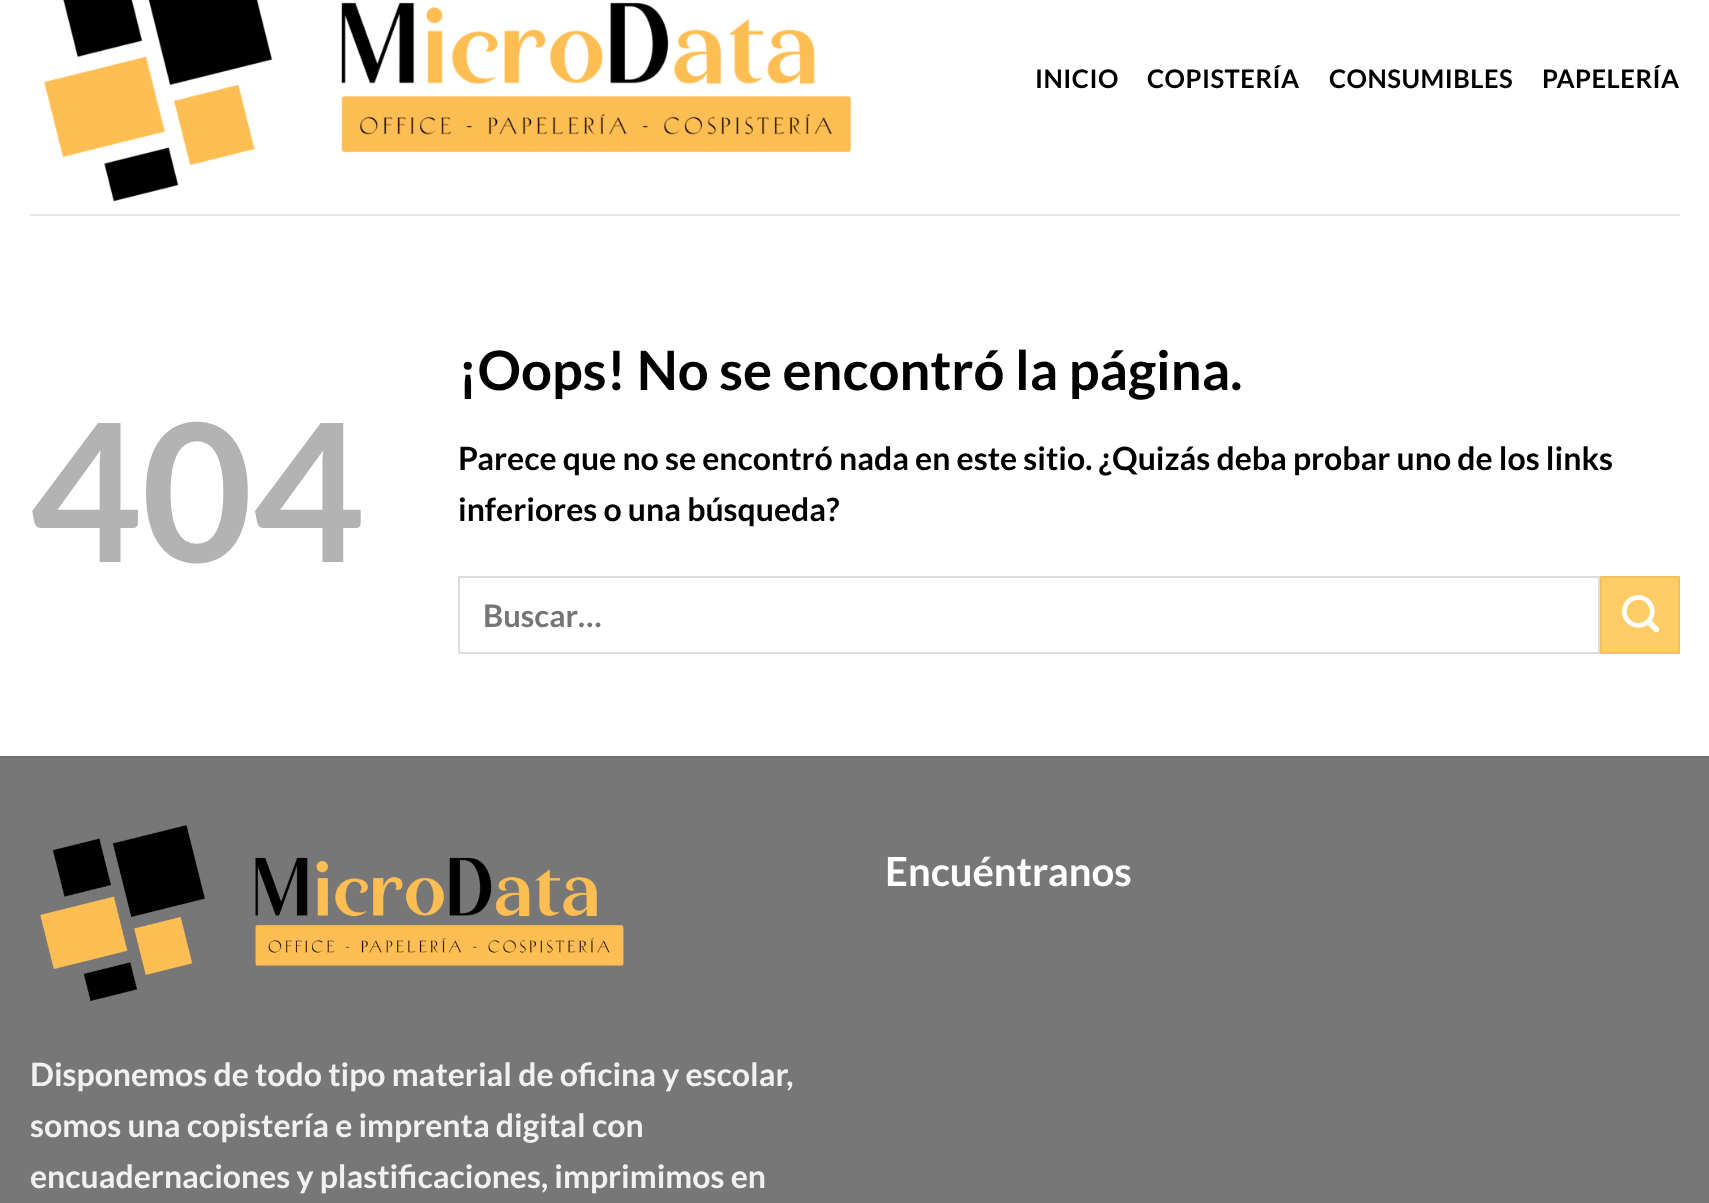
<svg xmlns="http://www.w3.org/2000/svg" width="1709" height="1203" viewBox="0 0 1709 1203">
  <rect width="100%" height="100%" fill="#ffffff"/>
  <image x="43" y="0" width="808" height="202" href="img1.png"/>
  <text x="1035" y="88" font-family="Lato" font-size="25.5" font-weight="bold" letter-spacing="0.5" fill="#000000">INICIO</text>
  <text x="1147" y="88" font-family="Lato" font-size="25.5" font-weight="bold" letter-spacing="0.5" fill="#000000">COPISTERÍA</text>
  <text x="1329" y="88" font-family="Lato" font-size="25.5" font-weight="bold" letter-spacing="0.5" fill="#000000">CONSUMIBLES</text>
  <text x="1542" y="88" font-family="Lato" font-size="25.5" font-weight="bold" letter-spacing="0.5" fill="#000000">PAPELERÍA</text>
  <rect x="30" y="214" width="1650" height="2" fill="#e6e6e6"/>
  <text x="30" y="562" font-family="Lato" font-size="192" font-weight="bold" fill="#b3b3b3">404</text>
  <text x="458" y="390" font-family="Lato" font-size="54.4" font-weight="bold" fill="#000000">¡Oops! No se encontró la página.</text>
  <text x="458" y="470" font-family="Lato" font-size="32" font-weight="bold" fill="#000000">Parece que no se encontró nada en este sitio. ¿Quizás deba probar uno de los links</text>
  <text x="458" y="521" font-family="Lato" font-size="32" font-weight="bold" fill="#000000">inferiores o una búsqueda?</text>
  <rect x="459" y="577" width="1140" height="76" fill="none" stroke="#dddddd" stroke-width="2"/>
  <text x="483" y="627" font-family="Lato" font-size="31" font-weight="bold" fill="#757575">Buscar…</text>
  <rect x="1601" y="577" width="78" height="76" fill="#ffcc66" stroke="#f2c261" stroke-width="2"/>
  <image x="1622" y="595" width="38" height="38" href="img2.png"/>
  <rect x="0" y="758" width="1709" height="445" fill="#777777"/>
  <rect x="0" y="756" width="1709" height="2" fill="#717171"/>
  <text x="885" y="886" font-family="Lato" font-size="40" font-weight="bold" fill="#ffffff">Encuéntranos</text>
  <image x="40" y="825" width="584" height="176" href="img3.png"/>
  <text x="30" y="1086" font-family="Lato" font-size="32" font-weight="bold" fill="#f1f1f1">Disponemos de todo tipo material de oficina y escolar,</text>
  <text x="30" y="1137" font-family="Lato" font-size="32" font-weight="bold" fill="#f1f1f1">somos una copistería e imprenta digital con</text>
  <text x="30" y="1188" font-family="Lato" font-size="32" font-weight="bold" fill="#f1f1f1">encuadernaciones y plastificaciones, imprimimos en</text>
</svg>
